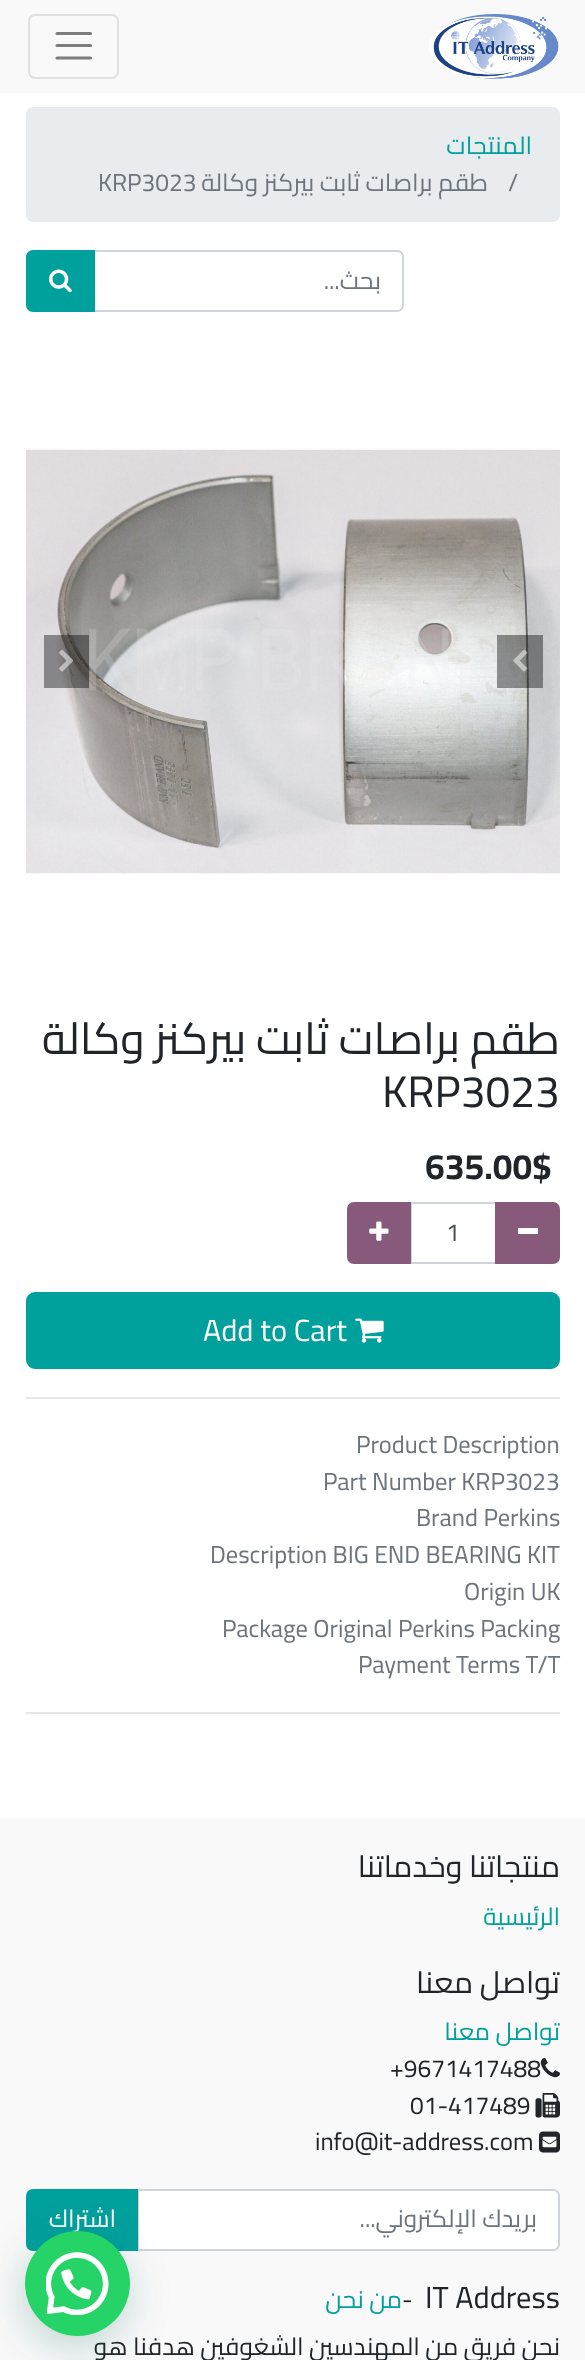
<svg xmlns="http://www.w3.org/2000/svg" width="585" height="2360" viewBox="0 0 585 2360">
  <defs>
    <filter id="blur1" x="-50%" y="-200%" width="200%" height="500%"><feGaussianBlur stdDeviation="21"/></filter>
  </defs>
  <rect width="100%" height="100%" fill="#ffffff"/>
  <rect x="0" y="0" width="585" height="93" fill="#f9f9f9"/>
  <rect x="29" y="15" width="89" height="63" rx="6" fill="none" stroke="#e0e0e0" stroke-width="2"/>
  <path d="M57 33.5H90.5M57 45.5H90.5M57 58H90.5" fill="none" stroke="#7d7d7d" stroke-width="3.1" stroke-linecap="round"/>
  <image x="429" y="14" width="130" height="65" href="img1.png"/>
  <rect x="26" y="107" width="534" height="115" rx="7" fill="#e9ecef"/>
  <text x="532" y="154" font-family="Cairo" font-size="24.5" direction="rtl" fill="#00a09d">المنتجات</text>
  <text x="98" y="191" font-family="Cairo" font-size="24.5" fill="#6c757d">KRP3023</text>
  <text x="488" y="191" font-family="Cairo" font-size="24.5" direction="rtl" fill="#6c757d">طقم براصات ثابت بيركنز وكالة</text>
  <text x="508" y="191" font-family="Cairo" font-size="24.5" fill="#6c757d">/</text>
  <path d="M94 251H397C400.5 251 403 253.5 403 257V305C403 308.5 400.5 311 397 311H94Z" fill="none" stroke="#ced4da" stroke-width="2"/>
  <path d="M33 251H94V311H33C29.5 311 27 308.5 27 305V257C27 253.5 29.5 251 33 251Z" fill="#00a09d" stroke="#00a09d" stroke-width="2"/>
  <image x="49" y="269" width="23" height="24" href="img2.png"/>
  <text x="381" y="289" font-family="Cairo" font-size="24.5" direction="rtl" fill="#6c757d">بحث...</text>
  <image x="26" y="449" width="534" height="425" href="img3.png"/>
  <rect x="44" y="635" width="45" height="53" fill="#000000" fill-opacity="0.4"/>
  <image x="59" y="649" width="15" height="23" href="img4.png"/>
  <rect x="497" y="635" width="46" height="53" fill="#000000" fill-opacity="0.4"/>
  <image x="513" y="649" width="15" height="23" href="img5.png"/>
  <text x="560" y="1054" font-family="Cairo" font-size="44.25" direction="rtl" fill="#212529">طقم براصات ثابت بيركنز وكالة</text>
  <text x="382" y="1107" font-family="Cairo" font-size="44.25" fill="#212529">KRP3023</text>
  <text x="425" y="1179" font-family="Cairo" font-size="35.5" font-weight="bold" fill="#212529">635.00</text>
  <text x="532" y="1179" font-family="Cairo" font-size="35.5" font-weight="bold" fill="#212529">$</text>
  <rect x="411" y="1203" width="85" height="60" fill="none" stroke="#ced4da" stroke-width="2"/>
  <path d="M354 1203H410V1263H354C350.5 1263 348 1260.5 348 1257V1209C348 1205.5 350.5 1203 354 1203Z" fill="#875a7b" stroke="#875a7b" stroke-width="2"/>
  <image x="369" y="1221" width="20" height="20" href="img6.png"/>
  <text x="446" y="1241" font-family="Cairo" font-size="24.5" fill="#495057">1</text>
  <path d="M496 1203H553C556.5 1203 559 1205.5 559 1209V1257C559 1260.5 556.5 1263 553 1263H496Z" fill="#875a7b" stroke="#875a7b" stroke-width="2"/>
  <rect x="518" y="1228" width="20" height="6" fill="#ffffff"/>
  <rect x="27" y="1293" width="532" height="75" rx="8" fill="#00a09d" stroke="#00a09d" stroke-width="2"/>
  <text x="203" y="1341" font-family="Cairo" font-size="30.5" fill="#ffffff">Add to Cart</text>
  <image x="355" y="1318" width="29" height="25" href="img7.png"/>
  <rect x="26" y="1397" width="534" height="2" fill="#e6e6e6"/>
  <text x="356" y="1453" font-family="Cairo" font-size="24.5" fill="#6c757d">Product Description</text>
  <text x="323" y="1490" font-family="Cairo" font-size="24.5" fill="#6c757d">Part Number KRP3023</text>
  <text x="416" y="1526" font-family="Cairo" font-size="24.5" fill="#6c757d">Brand Perkins</text>
  <text x="210" y="1563" font-family="Cairo" font-size="24.5" fill="#6c757d">Description BIG END BEARING KIT</text>
  <text x="464" y="1600" font-family="Cairo" font-size="24.5" fill="#6c757d">Origin UK</text>
  <text x="222" y="1637" font-family="Cairo" font-size="24.5" fill="#6c757d">Package Original Perkins Packing</text>
  <text x="358" y="1673" font-family="Cairo" font-size="24.5" fill="#6c757d">Payment Terms T/T</text>
  <rect x="26" y="1712" width="534" height="2" fill="#e6e6e6"/>
  <rect x="0" y="1818" width="585" height="542" fill="#f9f9f9"/>
  <text x="560" y="1877" font-family="Cairo" font-size="30.5" direction="rtl" fill="#212529">منتجاتنا وخدماتنا</text>
  <text x="560" y="1925" font-family="Cairo" font-size="24.5" direction="rtl" fill="#00a09d">الرئيسية</text>
  <text x="560" y="1993" font-family="Cairo" font-size="30.5" direction="rtl" fill="#212529">تواصل معنا</text>
  <text x="560" y="2040" font-family="Cairo" font-size="24.5" direction="rtl" fill="#00a09d">تواصل معنا</text>
  <text x="390" y="2077" font-family="Cairo" font-size="24.5" fill="#212529">+9671417488</text>
  <image x="540" y="2058" width="20" height="20" href="img8.png"/>
  <text x="410" y="2114" font-family="Cairo" font-size="24.5" fill="#212529">01-417489</text>
  <image x="535" y="2093" width="25" height="25" href="img9.png"/>
  <text x="315" y="2150" font-family="Cairo" font-size="24.5" fill="#212529">info@it-address.com</text>
  <image x="539" y="2131" width="21" height="22" href="img10.png"/>
  <path d="M138 2190H553C556.5 2190 559 2192.5 559 2196V2244C559 2247.5 556.5 2250 553 2250H138Z" fill="#ffffff" stroke="#ced4da" stroke-width="2"/>
  <path d="M33 2190H137V2250H33C29.5 2250 27 2247.5 27 2244V2196C27 2192.5 29.5 2190 33 2190Z" fill="#00a09d" stroke="#00a09d" stroke-width="2"/>
  <text x="116" y="2227" font-family="Cairo" font-size="24.5" direction="rtl" fill="#ffffff">اشتراك</text>
  <text x="537" y="2227" font-family="Cairo" font-size="24.5" direction="rtl" fill="#6c757d">بريدك الإلكتروني...</text>
  <text x="402" y="2308" font-family="Cairo" font-size="24.5" direction="rtl" fill="#00a09d">من نحن</text>
  <text x="402" y="2308" font-family="Cairo" font-size="24.5" fill="#212529">-</text>
  <text x="425" y="2308" font-family="Cairo" font-size="30.5" fill="#212529">IT Address</text>
  <text x="560" y="2355" font-family="Cairo" font-size="24.5" direction="rtl" fill="#212529">نحن فريق من المهندسين الشغوفين هدفنا هو</text>
  <rect x="23" y="2242" width="105" height="105" rx="52.5" fill="#075e54" fill-opacity="0.24" filter="url(#blur1)"/>
  <circle cx="77.5" cy="2283.5" r="52.5" fill="#25d366"/>
  <image x="46" y="2252" width="63" height="63" href="img11.png"/>
</svg>
